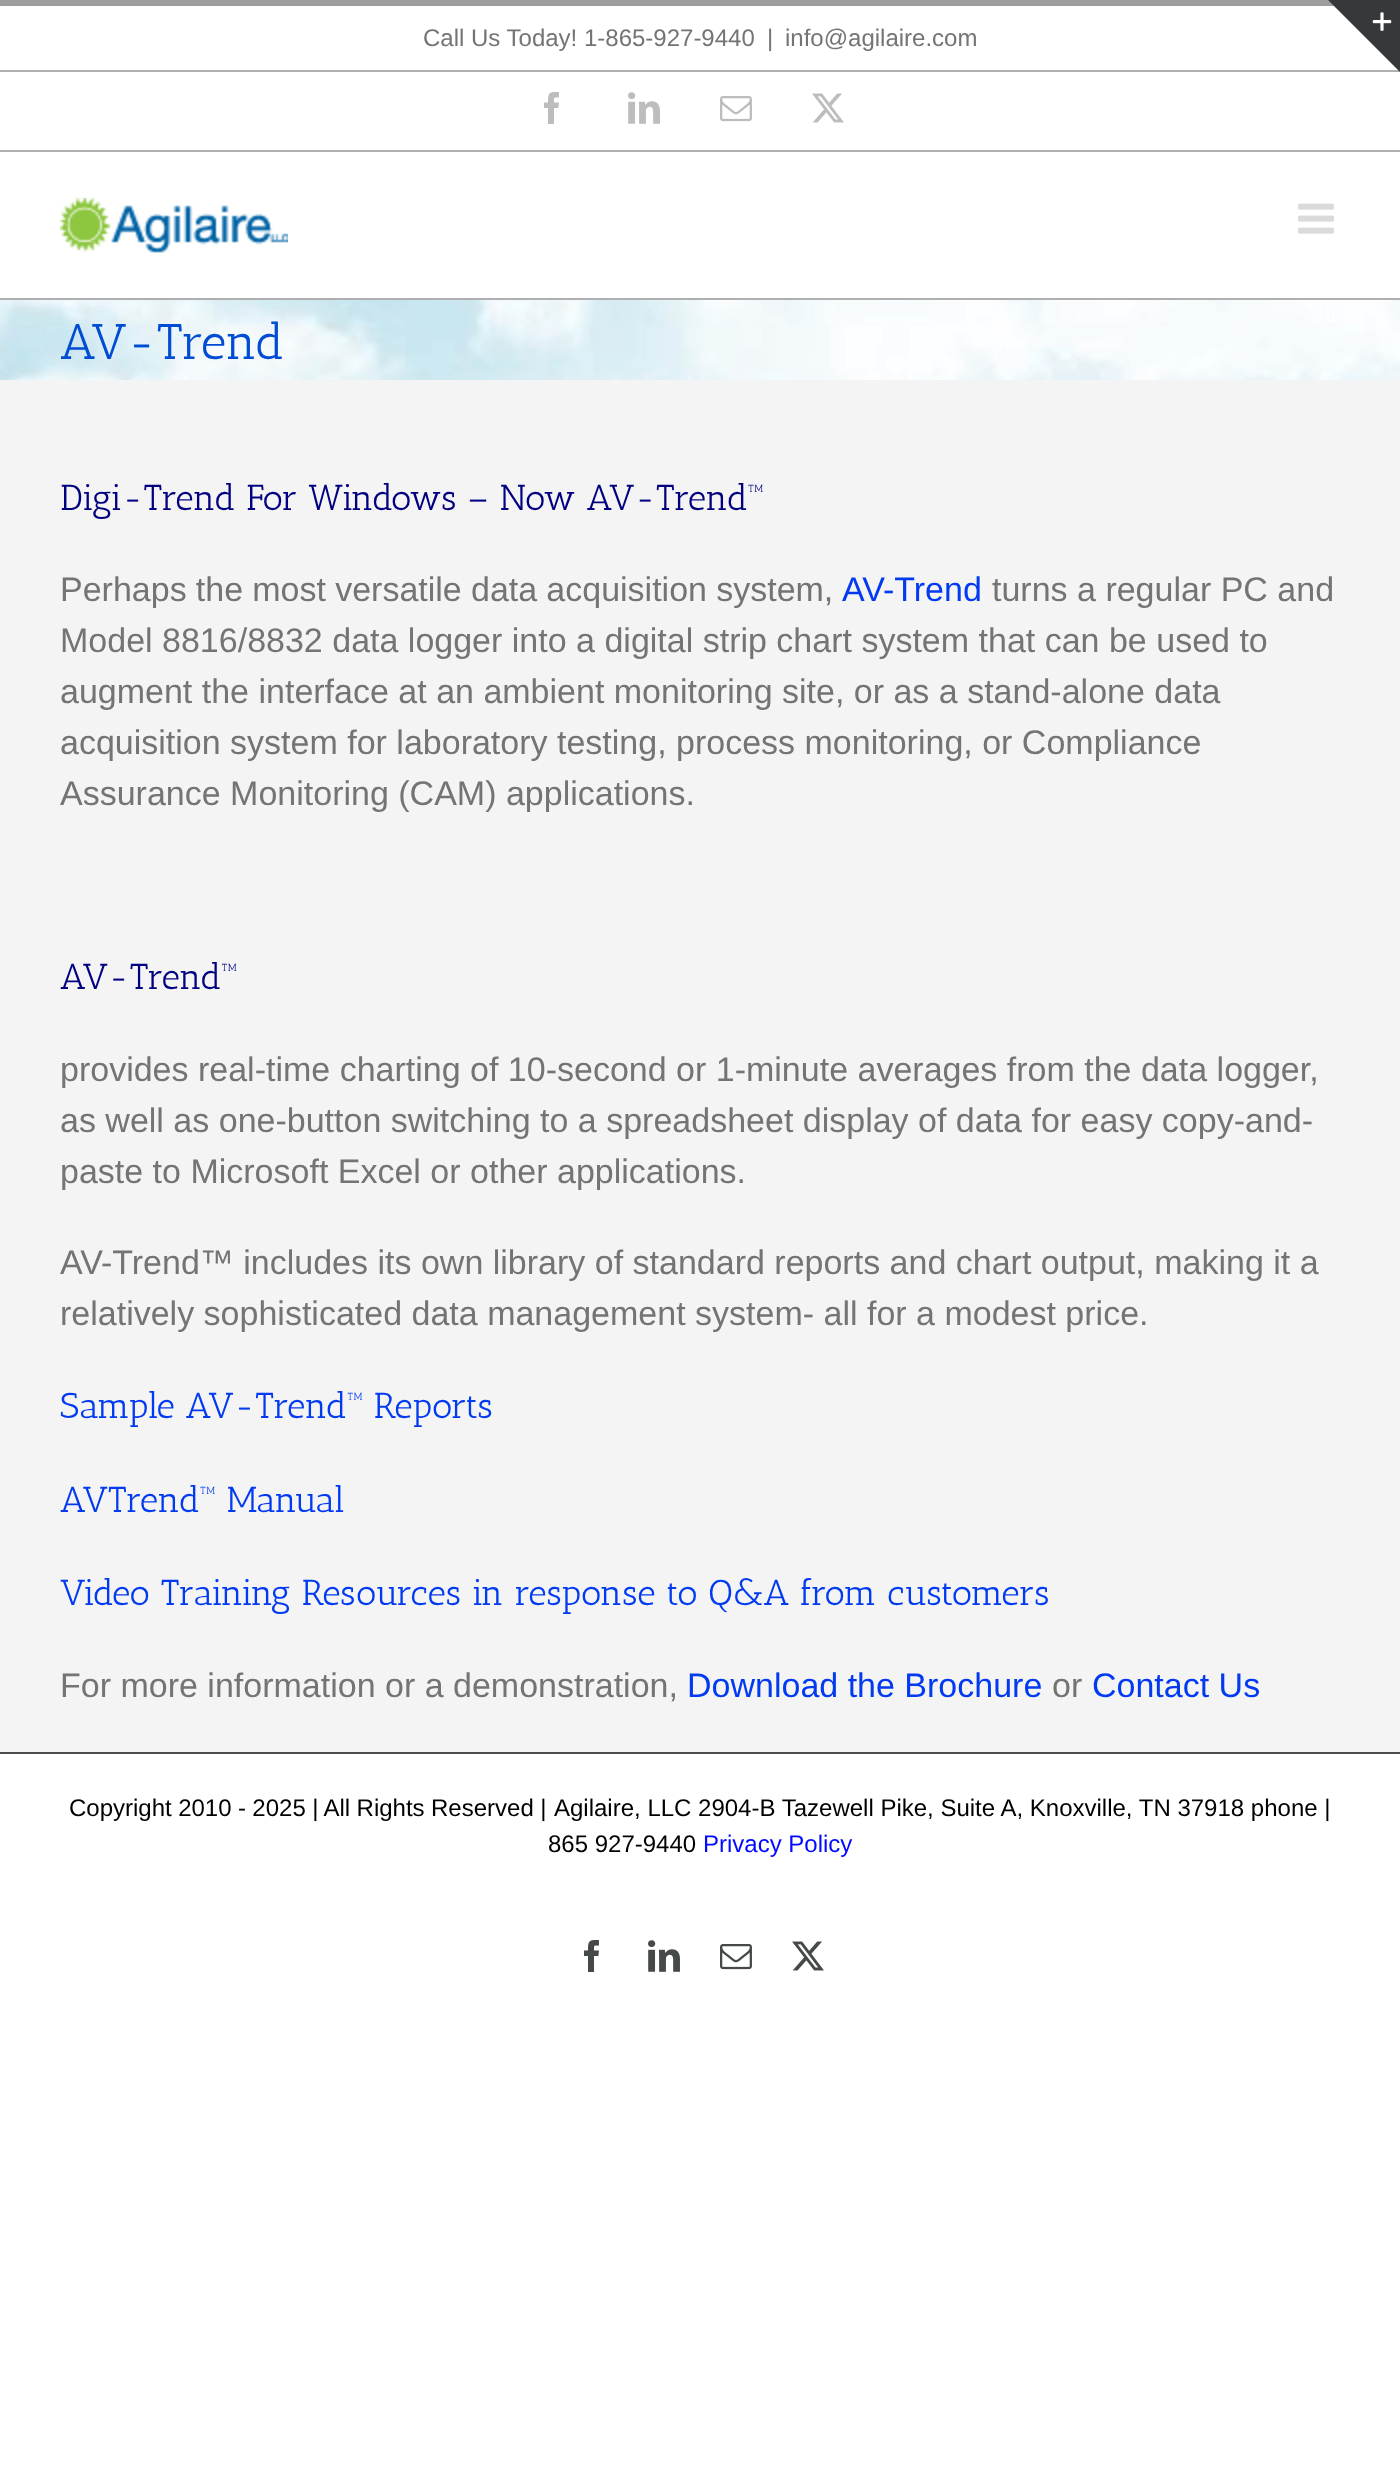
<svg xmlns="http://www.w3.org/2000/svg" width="1400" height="2474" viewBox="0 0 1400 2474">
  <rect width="100%" height="100%" fill="#ffffff"/>
  <image x="0" y="300" width="1400" height="80" href="img1.png"/>
  <rect x="0" y="0" width="1334" height="6" fill="#9e9e9e"/>
  <rect x="0" y="150" width="1400" height="2" fill="#afafaf"/>
  <rect x="0" y="70" width="1400" height="2" fill="#afafaf"/>
  <text x="423" y="46" font-family="Liberation Sans" font-size="24" fill="#747474">Call Us Today! 1-865-927-9440</text>
  <text x="767" y="46" font-family="Liberation Sans" font-size="24" fill="#747474">|</text>
  <text x="785" y="46" font-family="Liberation Sans" font-size="24" fill="#747474">info@agilaire.com</text>
  <image x="544" y="92" width="15" height="32" href="img2.png"/>
  <image x="628" y="92" width="32" height="32" href="img3.png"/>
  <image x="720" y="96" width="32" height="26" href="img4.png"/>
  <image x="812" y="93" width="32" height="30" href="img5.png"/>
  <rect x="0" y="298" width="1400" height="2" fill="#afafaf"/>
  <image x="60" y="198" width="228" height="55" href="img6.png"/>
  <image x="1298" y="203" width="36" height="31" href="img7.png"/>
  <path d="M1328 0H1400V72Z" fill="#363839"/>
  <image x="1372" y="12" width="20" height="19" href="img8.png"/>
  <text x="60" y="359" font-family="Antic Slab" font-size="50" fill="#004dd3">AV-Trend</text>
  <rect x="0" y="380" width="1400" height="1372" fill="#f4f4f4"/>
  <text x="60" y="510" font-family="Antic Slab" font-size="36" fill="#000080">Digi-Trend For Windows – Now AV-Trend™</text>
  <text x="60" y="601" word-spacing="-0.25" font-family="Liberation Sans" font-size="34" fill="#747474">Perhaps the most versatile data acquisition system,</text>
  <text x="842" y="601" font-family="Liberation Sans" font-size="34" fill="#023af2">AV-Trend</text>
  <text x="992" y="601" font-family="Liberation Sans" font-size="34" fill="#747474">turns a regular PC and</text>
  <text x="60" y="652" font-family="Liberation Sans" font-size="34" fill="#747474">Model 8816/8832 data logger into a digital strip chart system that can be used to</text>
  <text x="60" y="703" font-family="Liberation Sans" font-size="34" fill="#747474">augment the interface at an ambient monitoring site, or as a stand-alone data</text>
  <text x="60" y="754" font-family="Liberation Sans" font-size="34" fill="#747474">acquisition system for laboratory testing, process monitoring, or Compliance</text>
  <text x="60" y="805" font-family="Liberation Sans" font-size="34" fill="#747474">Assurance Monitoring (CAM) applications.</text>
  <text x="60" y="989" font-family="Antic Slab" font-size="36" fill="#000080">AV-Trend™</text>
  <text x="60" y="1081" font-family="Liberation Sans" font-size="34" fill="#747474">provides real-time charting of 10-second or 1-minute averages from the data logger,</text>
  <text x="60" y="1132" font-family="Liberation Sans" font-size="34" fill="#747474">as well as one-button switching to a spreadsheet display of data for easy copy-and-</text>
  <text x="60" y="1183" font-family="Liberation Sans" font-size="34" fill="#747474">paste to Microsoft Excel or other applications.</text>
  <text x="60" y="1274" font-family="Liberation Sans" font-size="34" fill="#747474">AV-Trend™ includes its own library of standard reports and chart output, making it a</text>
  <text x="60" y="1325" font-family="Liberation Sans" font-size="34" fill="#747474">relatively sophisticated data management system- all for a modest price.</text>
  <text x="60" y="1418" font-family="Antic Slab" font-size="36" fill="#023af2">Sample AV-Trend™ Reports</text>
  <text x="60" y="1512" font-family="Antic Slab" font-size="36" fill="#023af2">AVTrend™ Manual</text>
  <text x="60" y="1605" font-family="Antic Slab" font-size="36" fill="#023af2">Video Training Resources in response to Q&amp;A from customers</text>
  <text x="60" y="1697" font-family="Liberation Sans" font-size="34" fill="#747474">For more information or a demonstration,</text>
  <text x="687" y="1697" font-family="Liberation Sans" font-size="34" fill="#023af2">Download the Brochure</text>
  <text x="1052" y="1697" font-family="Liberation Sans" font-size="34" fill="#747474">or</text>
  <text x="1092" y="1697" font-family="Liberation Sans" font-size="34" fill="#023af2">Contact Us</text>
  <rect x="0" y="1752" width="1400" height="2" fill="#4b4c4d"/>
  <text x="69" y="1816" word-spacing="-0.25" font-family="Liberation Sans" font-size="24" fill="#000000">Copyright 2010 - 2025 | All Rights Reserved |</text>
  <text x="554" y="1816" font-family="Liberation Sans" font-size="24" fill="#000000">Agilaire, LLC 2904-B Tazewell Pike, Suite A, Knoxville, TN 37918 phone |</text>
  <text x="548" y="1852" font-family="Liberation Sans" font-size="24" fill="#000000">865 927-9440</text>
  <text x="703" y="1852" font-family="Liberation Sans" font-size="24" fill="#020aff">Privacy Policy</text>
  <image x="584" y="1940" width="15" height="32" href="img9.png"/>
  <image x="648" y="1940" width="32" height="32" href="img10.png"/>
  <image x="720" y="1944" width="32" height="26" href="img11.png"/>
  <image x="792" y="1941" width="32" height="30" href="img12.png"/>
</svg>
